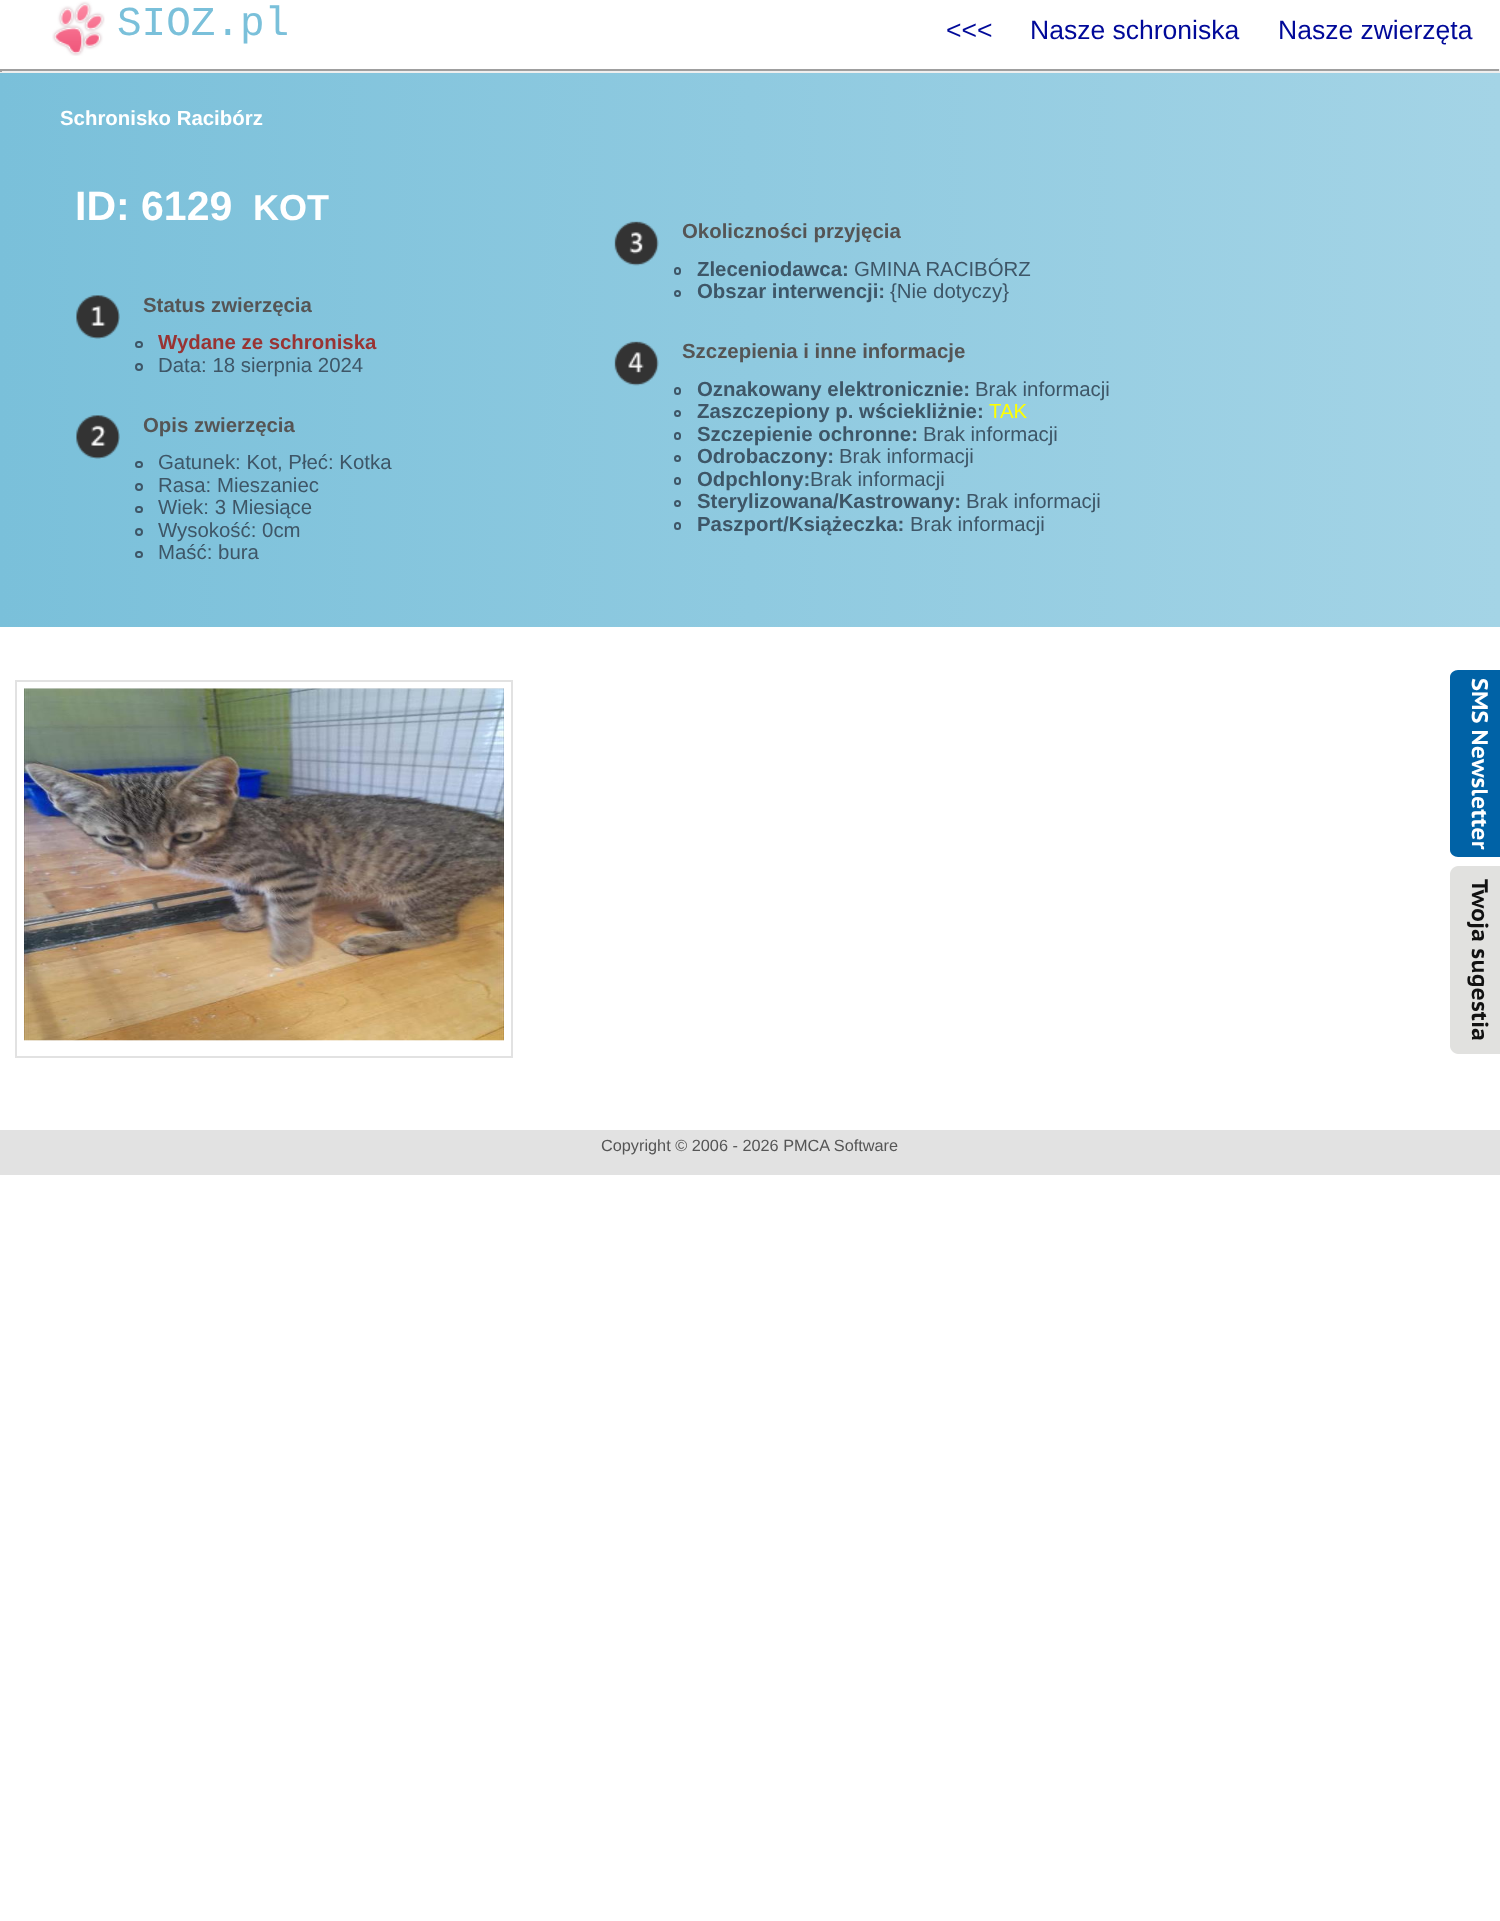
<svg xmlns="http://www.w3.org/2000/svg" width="1500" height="1921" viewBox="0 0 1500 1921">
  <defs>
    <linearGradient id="g1" gradientUnits="userSpaceOnUse" x1="0" y1="350" x2="1500" y2="349"><stop offset="0" stop-color="#7ac0da"/><stop offset="1" stop-color="#a4d4e6"/></linearGradient>
  </defs>
  <rect width="100%" height="100%" fill="#ffffff"/>
  <image x="52" y="1" width="53" height="55" href="img1.png"/>
  <text x="117" y="35" font-family="Liberation Mono" font-size="41" fill="#7ac0da">SIOZ.pl</text>
  <text x="946" y="39" font-family="Liberation Sans" font-size="26.5" fill="#000999">&lt;&lt;&lt;</text>
  <text x="1030" y="39" font-family="Liberation Sans" font-size="26.5" fill="#000999">Nasze schroniska</text>
  <text x="1278" y="39" font-family="Liberation Sans" font-size="26.5" fill="#000999">Nasze zwierzęta</text>
  <rect x="0" y="69" width="1500" height="2" fill="#9f9f9f"/>
  <rect x="1499" y="69" width="1" height="3" fill="#eeeeee"/>
  <rect x="0" y="71" width="1500" height="2" fill="#eeeeee"/>
  <rect x="0" y="69" width="2" height="3" fill="#9f9f9f"/>
  <rect x="0" y="73" width="1500" height="554" fill="url(#g1)"/>
  <text x="60" y="125" font-family="Liberation Sans" font-size="20.4" font-weight="bold" fill="#ffffff">Schronisko Racibórz</text>
  <text x="75" y="220" font-family="Liberation Sans" font-size="41" font-weight="bold" fill="#ffffff">ID: 6129</text>
  <text x="253" y="220" font-family="Liberation Sans" font-size="36" font-weight="bold" fill="#ffffff">KOT</text>
  <image x="614" y="221" width="45" height="45" href="img2.png"/>
  <text x="682" y="238" font-family="Liberation Sans" font-size="20.4" font-weight="bold" fill="#555555">Okoliczności przyjęcia</text>
  <rect x="675" y="268" width="5" height="6" rx="2.5" fill="none" stroke="#3e5667" stroke-width="2"/>
  <text x="697" y="276" font-family="Liberation Sans" font-size="20.4" font-weight="bold" fill="#3e5667">Zleceniodawca:</text>
  <text x="854" y="276" font-family="Liberation Sans" font-size="20.4" fill="#3e5667">GMINA RACIBÓRZ</text>
  <circle cx="677.5" cy="293.5" r="2.5" fill="none" stroke="#3e5667" stroke-width="2"/>
  <text x="697" y="298" font-family="Liberation Sans" font-size="20.4" font-weight="bold" fill="#3e5667">Obszar interwencji:</text>
  <text x="890" y="298" font-family="Liberation Sans" font-size="20.4" fill="#3e5667">{Nie dotyczy}</text>
  <image x="614" y="341" width="45" height="45" href="img3.png"/>
  <text x="682" y="358" font-family="Liberation Sans" font-size="20.4" font-weight="bold" fill="#555555">Szczepienia i inne informacje</text>
  <rect x="675" y="388" width="5" height="6" rx="2.5" fill="none" stroke="#3e5667" stroke-width="2"/>
  <text x="697" y="396" font-family="Liberation Sans" font-size="20.4" font-weight="bold" fill="#3e5667">Oznakowany elektronicznie:</text>
  <text x="975" y="396" font-family="Liberation Sans" font-size="20.4" fill="#3e5667">Brak informacji</text>
  <circle cx="677.5" cy="413.5" r="2.5" fill="none" stroke="#3e5667" stroke-width="2"/>
  <text x="697" y="418" font-family="Liberation Sans" font-size="20.4" font-weight="bold" fill="#3e5667">Zaszczepiony p. wściekliżnie:</text>
  <text x="989" y="418" font-family="Liberation Sans" font-size="20.4" fill="#ffff00">TAK</text>
  <rect x="675" y="433" width="5" height="6" rx="2.5" fill="none" stroke="#3e5667" stroke-width="2"/>
  <text x="697" y="441" font-family="Liberation Sans" font-size="20.4" font-weight="bold" fill="#3e5667">Szczepienie ochronne:</text>
  <text x="923" y="441" font-family="Liberation Sans" font-size="20.4" fill="#3e5667">Brak informacji</text>
  <circle cx="677.5" cy="458.5" r="2.5" fill="none" stroke="#3e5667" stroke-width="2"/>
  <text x="697" y="463" font-family="Liberation Sans" font-size="20.4" font-weight="bold" fill="#3e5667">Odrobaczony:</text>
  <text x="839" y="463" font-family="Liberation Sans" font-size="20.4" fill="#3e5667">Brak informacji</text>
  <rect x="675" y="478" width="5" height="6" rx="2.5" fill="none" stroke="#3e5667" stroke-width="2"/>
  <text x="697" y="486" font-family="Liberation Sans" font-size="20.4" font-weight="bold" fill="#3e5667">Odpchlony:</text>
  <text x="810" y="486" font-family="Liberation Sans" font-size="20.4" fill="#3e5667">Brak informacji</text>
  <circle cx="677.5" cy="503.5" r="2.5" fill="none" stroke="#3e5667" stroke-width="2"/>
  <text x="697" y="508" font-family="Liberation Sans" font-size="20.4" font-weight="bold" fill="#3e5667">Sterylizowana/Kastrowany:</text>
  <text x="966" y="508" font-family="Liberation Sans" font-size="20.4" fill="#3e5667">Brak informacji</text>
  <rect x="675" y="523" width="5" height="6" rx="2.5" fill="none" stroke="#3e5667" stroke-width="2"/>
  <text x="697" y="531" font-family="Liberation Sans" font-size="20.4" font-weight="bold" fill="#3e5667">Paszport/Książeczka:</text>
  <text x="910" y="531" font-family="Liberation Sans" font-size="20.4" fill="#3e5667">Brak informacji</text>
  <image x="76" y="295" width="44" height="44" href="img4.png"/>
  <text x="143" y="312" font-family="Liberation Sans" font-size="20.4" font-weight="bold" fill="#555555">Status zwierzęcia</text>
  <rect x="136" y="342" width="6" height="5" rx="2.5" fill="none" stroke="#3e5667" stroke-width="2"/>
  <text x="158" y="349" font-family="Liberation Sans" font-size="20.4" font-weight="bold" fill="#993333">Wydane ze schroniska</text>
  <circle cx="139" cy="367" r="3" fill="none" stroke="#3e5667" stroke-width="2"/>
  <text x="158" y="372" font-family="Liberation Sans" font-size="20.4" fill="#3e5667">Data: 18 sierpnia 2024</text>
  <image x="76" y="415" width="44" height="44" href="img5.png"/>
  <text x="143" y="432" font-family="Liberation Sans" font-size="20.4" font-weight="bold" fill="#555555">Opis zwierzęcia</text>
  <rect x="136" y="462" width="6" height="5" rx="2.5" fill="none" stroke="#3e5667" stroke-width="2"/>
  <text x="158" y="469" font-family="Liberation Sans" font-size="20.4" fill="#3e5667">Gatunek: Kot, Płeć: Kotka</text>
  <circle cx="139" cy="487" r="3" fill="none" stroke="#3e5667" stroke-width="2"/>
  <text x="158" y="492" font-family="Liberation Sans" font-size="20.4" fill="#3e5667">Rasa: Mieszaniec</text>
  <rect x="136" y="507" width="6" height="5" rx="2.5" fill="none" stroke="#3e5667" stroke-width="2"/>
  <text x="158" y="514" font-family="Liberation Sans" font-size="20.4" fill="#3e5667">Wiek: 3 Miesiące</text>
  <circle cx="139" cy="532" r="3" fill="none" stroke="#3e5667" stroke-width="2"/>
  <text x="158" y="537" font-family="Liberation Sans" font-size="20.4" fill="#3e5667">Wysokość: 0cm</text>
  <rect x="136" y="552" width="6" height="5" rx="2.5" fill="none" stroke="#3e5667" stroke-width="2"/>
  <text x="158" y="559" font-family="Liberation Sans" font-size="20.4" fill="#3e5667">Maść: bura</text>
  <rect x="16" y="681" width="496" height="376" fill="none" stroke="#e2e2e2" stroke-width="2"/>
  <image x="24" y="688" width="480" height="353" href="img6.png"/>
  <path d="M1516 670V857H1458C1454 857 1450 854 1450 850V677C1450 673 1454 670 1458 670Z" fill="#0062a6"/>
  <text x="1472" y="678" transform="rotate(90 1472 678)" font-family="PT Sans Caption" font-size="22.5" font-weight="bold" fill="#ffffff">SMS Newsletter</text>
  <path d="M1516 866V1054H1458C1454 1054 1450 1050 1450 1046V874C1450 870 1454 866 1458 866Z" fill="#e1e1df"/>
  <text x="1472" y="879" transform="rotate(90 1472 879)" font-family="PT Sans Caption" font-size="22.5" font-weight="bold" fill="#111111">Twoja sugestia</text>
  <rect x="0" y="1130" width="1500" height="45" fill="#e2e2e2"/>
  <text x="601" y="1151" font-family="Liberation Sans" font-size="16.3" fill="#555555">Copyright © 2006 - 2026 PMCA Software</text>
</svg>
